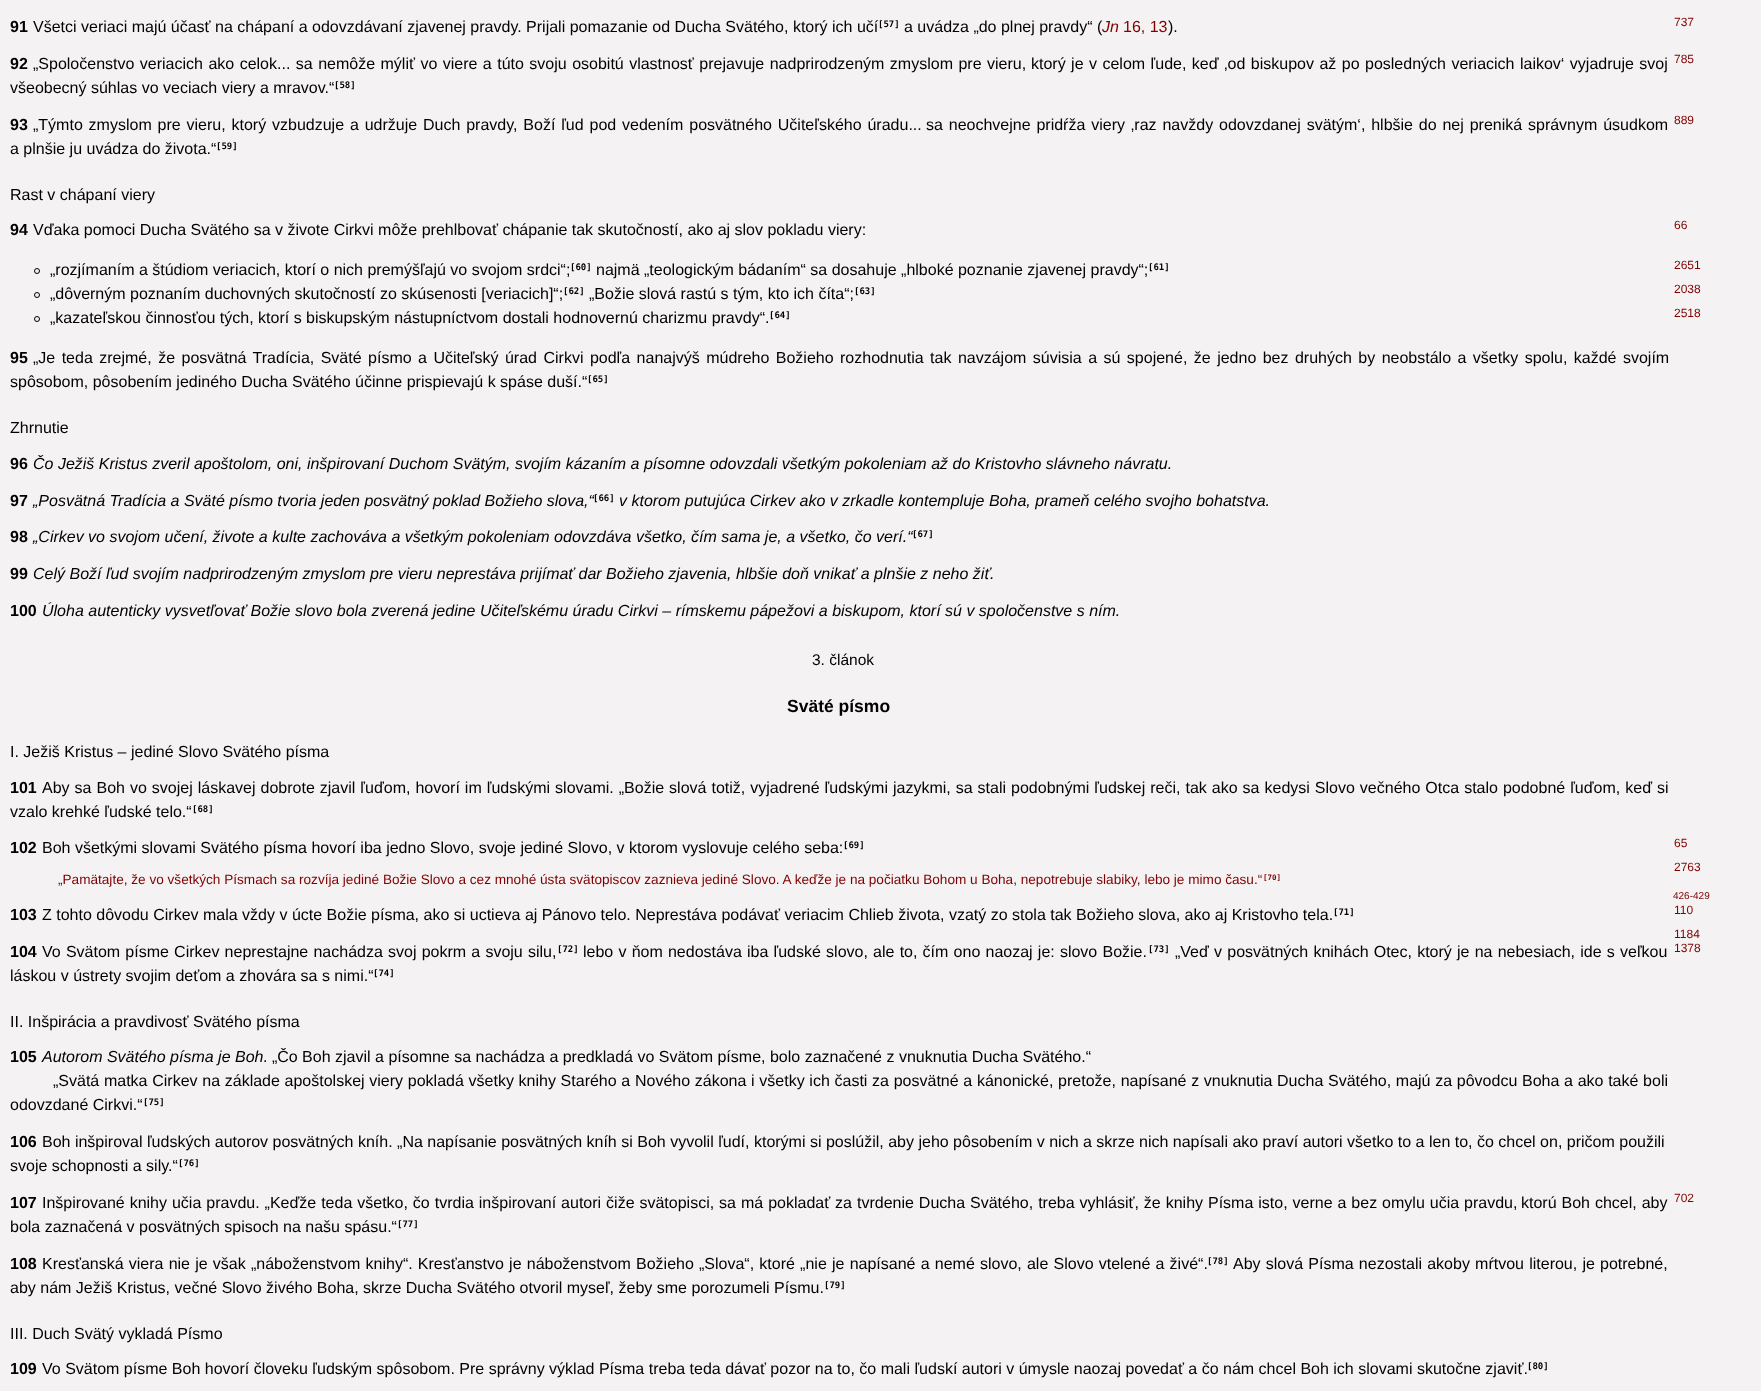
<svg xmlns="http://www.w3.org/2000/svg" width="1761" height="1391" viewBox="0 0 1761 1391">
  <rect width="100%" height="100%" fill="#f4f2f3"/>
  <text x="10" y="32" font-family="Liberation Sans" font-size="16" font-weight="bold" fill="#000000">91</text>
  <text x="33" y="32" font-family="Liberation Sans" font-size="16" fill="#000000">Všetci veriaci majú účasť na chápaní a odovzdávaní zjavenej pravdy. Prijali pomazanie od Ducha Svätého, ktorý ich učí</text>
  <text x="878" y="27" font-family="DejaVu Sans Mono" font-size="9" font-weight="bold" fill="#000000">[57]</text>
  <text x="904" y="32" font-family="Liberation Sans" font-size="16" fill="#000000">a uvádza „do plnej pravdy“ (</text>
  <text x="1102" y="32" font-family="Liberation Sans" font-size="16" font-style="italic" fill="#800000">Jn</text>
  <text x="1123" y="32" font-family="Liberation Sans" font-size="16" fill="#800000">16, 13</text>
  <text x="1168" y="32" font-family="Liberation Sans" font-size="16" fill="#000000">).</text>
  <text x="1674" y="26" font-family="Liberation Sans" font-size="12" fill="#800000">737</text>
  <text x="10" y="69" font-family="Liberation Sans" font-size="16" font-weight="bold" fill="#000000">92</text>
  <text x="33" y="69" word-spacing="1" font-family="Liberation Sans" font-size="16" fill="#000000">„Spoločenstvo veriacich ako celok... sa nemôže mýliť vo viere a túto svoju osobitú vlastnosť prejavuje nadprirodzeným zmyslom pre vieru,</text>
  <text x="1031" y="69" word-spacing="1" font-family="Liberation Sans" font-size="16" fill="#000000">ktorý je v celom ľude, keď ‚od biskupov až po posledných veriacich laikov‘ vyjadruje svoj</text>
  <text x="1674" y="63" font-family="Liberation Sans" font-size="12" fill="#800000">785</text>
  <text x="10" y="93" font-family="Liberation Sans" font-size="16" fill="#000000">všeobecný súhlas vo veciach viery a mravov.“</text>
  <text x="334" y="88" font-family="DejaVu Sans Mono" font-size="9" font-weight="bold" fill="#000000">[58]</text>
  <text x="10" y="130" font-family="Liberation Sans" font-size="16" font-weight="bold" fill="#000000">93</text>
  <text x="33" y="130" word-spacing="1.4" font-family="Liberation Sans" font-size="16" fill="#000000">„Týmto zmyslom pre vieru, ktorý vzbudzuje a udržuje Duch pravdy, Boží ľud pod vedením posvätného Učiteľského úradu...</text>
  <text x="926" y="130" word-spacing="1.4" font-family="Liberation Sans" font-size="16" fill="#000000">sa neochvejne pridŕža viery ‚raz navždy odovzdanej svätým‘, hlbšie do nej preniká správnym úsudkom</text>
  <text x="1674" y="124" font-family="Liberation Sans" font-size="12" fill="#800000">889</text>
  <text x="10" y="154" font-family="Liberation Sans" font-size="16" fill="#000000">a plnšie ju uvádza do života.“</text>
  <text x="216" y="149" font-family="DejaVu Sans Mono" font-size="9" font-weight="bold" fill="#000000">[59]</text>
  <text x="10" y="200" font-family="Liberation Sans" font-size="16" fill="#000000">Rast v chápaní viery</text>
  <text x="10" y="235" font-family="Liberation Sans" font-size="16" font-weight="bold" fill="#000000">94</text>
  <text x="33" y="235" font-family="Liberation Sans" font-size="16" fill="#000000">Vďaka pomoci Ducha Svätého sa v živote Cirkvi môže prehlbovať chápanie tak skutočností, ako aj slov pokladu viery:</text>
  <text x="1674" y="229" font-family="Liberation Sans" font-size="12" fill="#800000">66</text>
  <circle cx="37" cy="271" r="2.5" fill="none" stroke="#000000"/>
  <text x="50" y="275" font-family="Liberation Sans" font-size="16" fill="#000000">„rozjímaním a štúdiom veriacich, ktorí o nich premýšľajú vo svojom srdci“;</text>
  <text x="570" y="270" font-family="DejaVu Sans Mono" font-size="9" font-weight="bold" fill="#000000">[60]</text>
  <text x="596" y="275" font-family="Liberation Sans" font-size="16" fill="#000000">najmä „teologickým bádaním“ sa dosahuje „hlboké poznanie zjavenej pravdy“;</text>
  <text x="1148" y="270" font-family="DejaVu Sans Mono" font-size="9" font-weight="bold" fill="#000000">[61]</text>
  <text x="1674" y="269" font-family="Liberation Sans" font-size="12" fill="#800000">2651</text>
  <circle cx="37" cy="295" r="2.5" fill="none" stroke="#000000"/>
  <text x="50" y="299" font-family="Liberation Sans" font-size="16" fill="#000000">„dôverným poznaním duchovných skutočností zo skúsenosti [veriacich]“;</text>
  <text x="563" y="294" font-family="DejaVu Sans Mono" font-size="9" font-weight="bold" fill="#000000">[62]</text>
  <text x="589" y="299" font-family="Liberation Sans" font-size="16" fill="#000000">„Božie slová rastú s tým, kto ich číta“;</text>
  <text x="854" y="294" font-family="DejaVu Sans Mono" font-size="9" font-weight="bold" fill="#000000">[63]</text>
  <text x="1674" y="293" font-family="Liberation Sans" font-size="12" fill="#800000">2038</text>
  <text x="1674" y="317" font-family="Liberation Sans" font-size="12" fill="#800000">2518</text>
  <circle cx="37" cy="319" r="2.5" fill="none" stroke="#000000"/>
  <text x="50" y="323" font-family="Liberation Sans" font-size="16" fill="#000000">„kazateľskou činnosťou tých, ktorí s biskupským nástupníctvom dostali hodnovernú charizmu pravdy“.</text>
  <text x="769" y="318" font-family="DejaVu Sans Mono" font-size="9" font-weight="bold" fill="#000000">[64]</text>
  <text x="10" y="363" font-family="Liberation Sans" font-size="16" font-weight="bold" fill="#000000">95</text>
  <text x="33" y="363" word-spacing="2" font-family="Liberation Sans" font-size="16" fill="#000000">„Je teda zrejmé, že posvätná Tradícia, Sväté písmo a Učiteľský úrad Cirkvi podľa nanajvýš múdreho Božieho rozhodnutia tak navzájom súvisia a sú spojené, že jedno bez druhých by neobstálo a všetky spolu, každé svojím</text>
  <text x="10" y="387" font-family="Liberation Sans" font-size="16" fill="#000000">spôsobom, pôsobením jediného Ducha Svätého účinne prispievajú k spáse duší.“</text>
  <text x="587" y="382" font-family="DejaVu Sans Mono" font-size="9" font-weight="bold" fill="#000000">[65]</text>
  <text x="10" y="433" font-family="Liberation Sans" font-size="16" fill="#000000">Zhrnutie</text>
  <text x="10" y="469" font-family="Liberation Sans" font-size="16" font-weight="bold" fill="#000000">96</text>
  <text x="33" y="469" font-family="Liberation Sans" font-size="16" font-style="italic" fill="#000000">Čo Ježiš Kristus zveril apoštolom, oni, inšpirovaní Duchom Svätým, svojím kázaním a písomne odovzdali všetkým pokoleniam až do Kristovho slávneho návratu.</text>
  <text x="10" y="506" font-family="Liberation Sans" font-size="16" font-weight="bold" fill="#000000">97</text>
  <text x="33" y="506" font-family="Liberation Sans" font-size="16" font-style="italic" fill="#000000">„Posvätná Tradícia a Sväté písmo tvoria jeden posvätný poklad Božieho slova,“</text>
  <text x="593" y="501" font-family="DejaVu Sans Mono" font-size="9" font-weight="bold" fill="#000000">[66]</text>
  <text x="619" y="506" font-family="Liberation Sans" font-size="16" font-style="italic" fill="#000000">v ktorom putujúca Cirkev ako v zrkadle kontempluje Boha, prameň celého svojho bohatstva.</text>
  <text x="10" y="542" font-family="Liberation Sans" font-size="16" font-weight="bold" fill="#000000">98</text>
  <text x="33" y="542" font-family="Liberation Sans" font-size="16" font-style="italic" fill="#000000">„Cirkev vo svojom učení, živote a kulte zachováva a všetkým pokoleniam odovzdáva všetko, čím sama je, a všetko, čo verí.“</text>
  <text x="912" y="537" font-family="DejaVu Sans Mono" font-size="9" font-weight="bold" fill="#000000">[67]</text>
  <text x="10" y="579" font-family="Liberation Sans" font-size="16" font-weight="bold" fill="#000000">99</text>
  <text x="33" y="579" font-family="Liberation Sans" font-size="16" font-style="italic" fill="#000000">Celý Boží ľud svojím nadprirodzeným zmyslom pre vieru neprestáva prijímať dar Božieho zjavenia, hlbšie doň vnikať a plnšie z neho žiť.</text>
  <text x="10" y="616" font-family="Liberation Sans" font-size="16" font-weight="bold" fill="#000000">100</text>
  <text x="42" y="616" font-family="Liberation Sans" font-size="16" font-style="italic" fill="#000000">Úloha autenticky vysvetľovať Božie slovo bola zverená jedine Učiteľskému úradu Cirkvi – rímskemu pápežovi a biskupom, ktorí sú v spoločenstve s ním.</text>
  <text x="812" y="665" font-family="Liberation Sans" font-size="15.5" fill="#000000">3. článok</text>
  <text x="787" y="712" font-family="Liberation Sans" font-size="17.5" font-weight="bold" fill="#000000">Sväté písmo</text>
  <text x="10" y="757" font-family="Liberation Sans" font-size="16" fill="#000000">I. Ježiš Kristus – jediné Slovo Svätého písma</text>
  <text x="10" y="793" font-family="Liberation Sans" font-size="16" font-weight="bold" fill="#000000">101</text>
  <text x="42" y="793" word-spacing="0.55" font-family="Liberation Sans" font-size="16" fill="#000000">Aby sa Boh vo svojej láskavej dobrote zjavil ľuďom, hovorí im ľudskými slovami. „Božie slová totiž, vyjadrené ľudskými jazykmi, sa stali podobnými ľudskej reči, tak ako sa kedysi Slovo večného Otca stalo podobné ľuďom, keď si</text>
  <text x="10" y="817" font-family="Liberation Sans" font-size="16" fill="#000000">vzalo krehké ľudské telo.“</text>
  <text x="192" y="812" font-family="DejaVu Sans Mono" font-size="9" font-weight="bold" fill="#000000">[68]</text>
  <text x="10" y="853" font-family="Liberation Sans" font-size="16" font-weight="bold" fill="#000000">102</text>
  <text x="42" y="853" font-family="Liberation Sans" font-size="16" fill="#000000">Boh všetkými slovami Svätého písma hovorí iba jedno Slovo, svoje jediné Slovo, v ktorom vyslovuje celého seba:</text>
  <text x="843" y="848" font-family="DejaVu Sans Mono" font-size="9" font-weight="bold" fill="#000000">[69]</text>
  <text x="1674" y="847" font-family="Liberation Sans" font-size="12" fill="#800000">65</text>
  <text x="1674" y="871" font-family="Liberation Sans" font-size="12" fill="#800000">2763</text>
  <text x="58" y="884" font-family="Liberation Sans" font-size="13.6" fill="#800000">„Pamätajte, že vo všetkých Písmach sa rozvíja jediné Božie Slovo a cez mnohé ústa svätopiscov zaznieva jediné Slovo. A keďže je na počiatku Bohom u Boha, nepotrebuje slabiky, lebo je mimo času.“</text>
  <text x="1263" y="880" font-family="DejaVu Sans Mono" font-size="7.5" font-weight="bold" fill="#800000">[70]</text>
  <text x="1673" y="899" font-family="Liberation Sans" font-size="10" fill="#800000">426-429</text>
  <text x="10" y="920" font-family="Liberation Sans" font-size="16" font-weight="bold" fill="#000000">103</text>
  <text x="42" y="920" font-family="Liberation Sans" font-size="16" fill="#000000">Z tohto dôvodu Cirkev mala vždy v úcte Božie písma, ako si uctieva aj Pánovo telo. Neprestáva podávať veriacim Chlieb života, vzatý zo stola tak Božieho slova, ako aj Kristovho tela.</text>
  <text x="1333" y="915" font-family="DejaVu Sans Mono" font-size="9" font-weight="bold" fill="#000000">[71]</text>
  <text x="1674" y="914" font-family="Liberation Sans" font-size="12" fill="#800000">110</text>
  <text x="1674" y="938" font-family="Liberation Sans" font-size="12" fill="#800000">1184</text>
  <text x="1674" y="952" font-family="Liberation Sans" font-size="12" fill="#800000">1378</text>
  <text x="10" y="957" font-family="Liberation Sans" font-size="16" font-weight="bold" fill="#000000">104</text>
  <text x="42" y="957" word-spacing="0.75" font-family="Liberation Sans" font-size="16" fill="#000000">Vo Svätom písme Cirkev neprestajne nachádza svoj pokrm a svoju silu,</text>
  <text x="557" y="952" font-family="DejaVu Sans Mono" font-size="9" font-weight="bold" fill="#000000">[72]</text>
  <text x="583" y="957" word-spacing="0.75" font-family="Liberation Sans" font-size="16" fill="#000000">lebo v ňom nedostáva iba ľudské slovo, ale to, čím ono naozaj je: slovo Božie.</text>
  <text x="1148" y="952" font-family="DejaVu Sans Mono" font-size="9" font-weight="bold" fill="#000000">[73]</text>
  <text x="1175" y="957" word-spacing="0.75" font-family="Liberation Sans" font-size="16" fill="#000000">„Veď v posvätných knihách Otec, ktorý je na nebesiach, ide s veľkou</text>
  <text x="10" y="981" font-family="Liberation Sans" font-size="16" fill="#000000">láskou v ústrety svojim deťom a zhovára sa s nimi.“</text>
  <text x="373" y="976" font-family="DejaVu Sans Mono" font-size="9" font-weight="bold" fill="#000000">[74]</text>
  <text x="10" y="1027" font-family="Liberation Sans" font-size="16" fill="#000000">II. Inšpirácia a pravdivosť Svätého písma</text>
  <text x="10" y="1062" font-family="Liberation Sans" font-size="16" font-weight="bold" fill="#000000">105</text>
  <text x="42" y="1062" font-family="Liberation Sans" font-size="16" font-style="italic" fill="#000000">Autorom Svätého písma je Boh</text>
  <text x="263" y="1062" font-family="Liberation Sans" font-size="16" fill="#000000">. „Čo Boh zjavil a písomne sa nachádza a predkladá vo Svätom písme, bolo zaznačené z vnuknutia Ducha Svätého.“</text>
  <text x="53" y="1086" word-spacing="0.25" font-family="Liberation Sans" font-size="16" fill="#000000">„Svätá matka Cirkev na základe apoštolskej viery pokladá všetky knihy Starého a Nového zákona i všetky ich časti za posvätné a kánonické, pretože, napísané z vnuknutia Ducha Svätého, majú za pôvodcu Boha a ako také boli</text>
  <text x="10" y="1110" font-family="Liberation Sans" font-size="16" fill="#000000">odovzdané Cirkvi.“</text>
  <text x="143" y="1105" font-family="DejaVu Sans Mono" font-size="9" font-weight="bold" fill="#000000">[75]</text>
  <text x="10" y="1147" font-family="Liberation Sans" font-size="16" font-weight="bold" fill="#000000">106</text>
  <text x="42" y="1147" font-family="Liberation Sans" font-size="16" fill="#000000">Boh inšpiroval ľudských autorov posvätných kníh. „Na napísanie posvätných kníh si Boh vyvolil ľudí, ktorými si poslúžil, aby jeho pôsobením v nich a skrze nich napísali ako praví autori všetko to a len to, čo chcel on, pričom použili</text>
  <text x="10" y="1171" font-family="Liberation Sans" font-size="16" fill="#000000">svoje schopnosti a sily.“</text>
  <text x="178" y="1166" font-family="DejaVu Sans Mono" font-size="9" font-weight="bold" fill="#000000">[76]</text>
  <text x="10" y="1208" font-family="Liberation Sans" font-size="16" font-weight="bold" fill="#000000">107</text>
  <text x="42" y="1208" word-spacing="0.5" font-family="Liberation Sans" font-size="16" fill="#000000">Inšpirované knihy učia pravdu. „Keďže teda všetko, čo tvrdia inšpirovaní autori čiže svätopisci, sa má pokladať za tvrdenie Ducha Svätého, treba vyhlásiť, že knihy Písma isto, verne a bez omylu učia pravdu,</text>
  <text x="1521" y="1208" word-spacing="0.5" font-family="Liberation Sans" font-size="16" fill="#000000">ktorú Boh chcel, aby</text>
  <text x="1674" y="1202" font-family="Liberation Sans" font-size="12" fill="#800000">702</text>
  <text x="10" y="1232" font-family="Liberation Sans" font-size="16" fill="#000000">bola zaznačená v posvätných spisoch na našu spásu.“</text>
  <text x="397" y="1227" font-family="DejaVu Sans Mono" font-size="9" font-weight="bold" fill="#000000">[77]</text>
  <text x="10" y="1269" font-family="Liberation Sans" font-size="16" font-weight="bold" fill="#000000">108</text>
  <text x="42" y="1269" word-spacing="0.75" font-family="Liberation Sans" font-size="16" fill="#000000">Kresťanská viera nie je však „náboženstvom knihy“. Kresťanstvo je náboženstvom Božieho „Slova“, ktoré „nie je napísané a nemé slovo, ale Slovo vtelené a živé“.</text>
  <text x="1207" y="1264" font-family="DejaVu Sans Mono" font-size="9" font-weight="bold" fill="#000000">[78]</text>
  <text x="1233" y="1269" word-spacing="0.75" font-family="Liberation Sans" font-size="16" fill="#000000">Aby slová Písma nezostali akoby mŕtvou literou, je potrebné,</text>
  <text x="10" y="1293" font-family="Liberation Sans" font-size="16" fill="#000000">aby nám Ježiš Kristus, večné Slovo živého Boha, skrze Ducha Svätého otvoril myseľ, žeby sme porozumeli Písmu.</text>
  <text x="824" y="1288" font-family="DejaVu Sans Mono" font-size="9" font-weight="bold" fill="#000000">[79]</text>
  <text x="10" y="1339" font-family="Liberation Sans" font-size="16" fill="#000000">III. Duch Svätý vykladá Písmo</text>
  <text x="10" y="1374" font-family="Liberation Sans" font-size="16" font-weight="bold" fill="#000000">109</text>
  <text x="42" y="1374" font-family="Liberation Sans" font-size="16" fill="#000000">Vo Svätom písme Boh hovorí človeku ľudským spôsobom. Pre správny výklad Písma treba teda dávať pozor na to, čo mali ľudskí autori v úmysle naozaj povedať a čo nám chcel Boh ich slovami skutočne zjaviť.</text>
  <text x="1527" y="1369" font-family="DejaVu Sans Mono" font-size="9" font-weight="bold" fill="#000000">[80]</text>
</svg>
